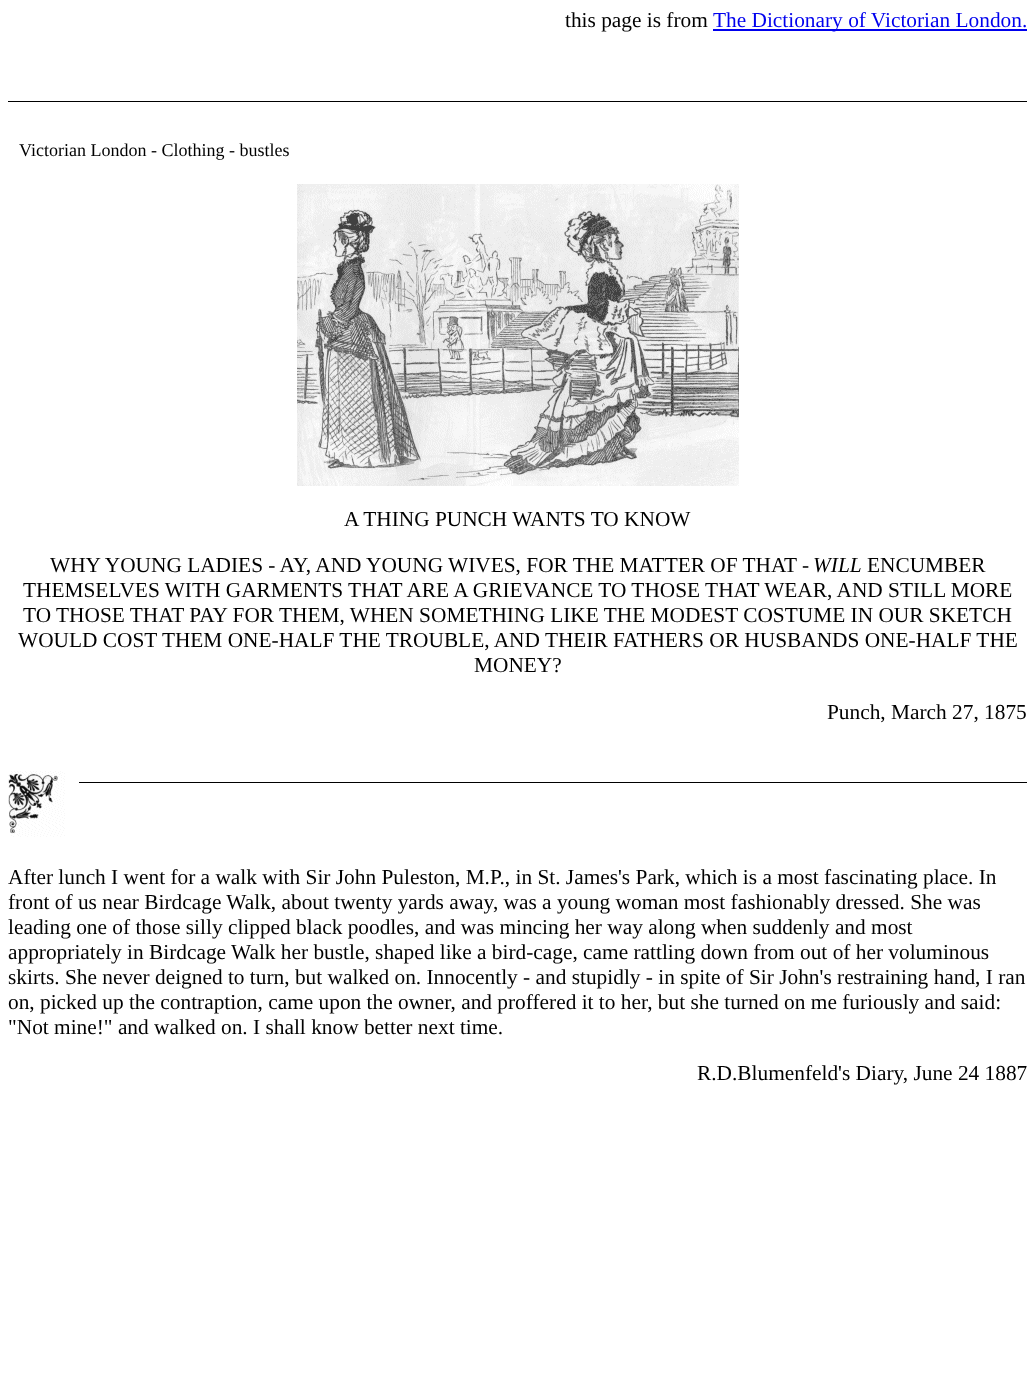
<svg xmlns="http://www.w3.org/2000/svg" width="1035" height="1399" viewBox="0 0 1035 1399">
  <rect width="100%" height="100%" fill="#ffffff"/>
  <text x="565" y="27" font-family="Liberation Serif" font-size="21.35" fill="#000000">this page is from</text>
  <rect x="713" y="29" width="314" height="2" fill="#0000ee"/>
  <text x="713" y="27" font-family="Liberation Serif" font-size="21.35" fill="#0000ee">The Dictionary of Victorian London.</text>
  <rect x="8" y="101" width="1019" height="1" fill="#000000"/>
  <text x="19" y="156" font-family="Liberation Serif" font-size="18" fill="#000000">Victorian London - Clothing - bustles</text>
  <image x="297" y="184" width="442" height="302" href="img1.png"/>
  <text x="344" y="526" font-family="Liberation Serif" font-size="21.35" fill="#000000">A THING PUNCH WANTS TO KNOW</text>
  <text x="50" y="572" font-family="Liberation Serif" font-size="21.35" fill="#000000">WHY YOUNG LADIES - AY, AND YOUNG WIVES, FOR THE MATTER OF THAT -</text>
  <text x="813" y="572" font-family="Liberation Serif" font-size="21.35" font-style="italic" fill="#000000">WILL</text>
  <text x="867" y="572" font-family="Liberation Serif" font-size="21.35" fill="#000000">ENCUMBER</text>
  <text x="23" y="597" font-family="Liberation Serif" font-size="21.35" fill="#000000">THEMSELVES WITH GARMENTS THAT ARE A GRIEVANCE TO THOSE THAT WEAR, AND STILL MORE</text>
  <text x="23" y="622" font-family="Liberation Serif" font-size="21.35" fill="#000000">TO THOSE THAT PAY FOR THEM, WHEN SOMETHING LIKE THE MODEST COSTUME IN OUR SKETCH</text>
  <text x="18" y="647" font-family="Liberation Serif" font-size="21.35" fill="#000000">WOULD COST THEM ONE-HALF THE TROUBLE, AND THEIR FATHERS OR HUSBANDS ONE-HALF THE</text>
  <text x="474" y="672" font-family="Liberation Serif" font-size="21.35" fill="#000000">MONEY?</text>
  <text x="827" y="719" font-family="Liberation Serif" font-size="21.35" fill="#000000">Punch, March 27, 1875</text>
  <image x="8" y="771" width="57" height="66" href="img2.png"/>
  <rect x="79" y="782" width="948" height="1" fill="#000000"/>
  <text x="8" y="884" font-family="Liberation Serif" font-size="21.35" fill="#000000">After lunch I went for a walk with Sir John Puleston, M.P., in St. James's Park, which is a most fascinating place. In</text>
  <text x="8" y="909" font-family="Liberation Serif" font-size="21.35" fill="#000000">front of us near Birdcage Walk, about twenty yards away, was a young woman most fashionably dressed. She was</text>
  <text x="8" y="934" font-family="Liberation Serif" font-size="21.35" fill="#000000">leading one of those silly clipped black poodles, and was mincing her way along when suddenly and most</text>
  <text x="8" y="959" font-family="Liberation Serif" font-size="21.35" fill="#000000">appropriately in Birdcage</text>
  <text x="231" y="959" font-family="Liberation Serif" font-size="21.35" fill="#000000">Walk her bustle, shaped like a bird-cage, came rattling down from out of her voluminous</text>
  <text x="8" y="984" font-family="Liberation Serif" font-size="21.35" fill="#000000">skirts. She never deigned to turn, but walked on. Innocently - and stupidly - in spite of Sir John's restraining hand, I ran</text>
  <text x="8" y="1009" font-family="Liberation Serif" font-size="21.35" fill="#000000">on, picked up the contraption, came upon the owner, and proffered it to her, but she turned on me furiously and said:</text>
  <text x="8" y="1034" font-family="Liberation Serif" font-size="21.35" fill="#000000">"Not mine!" and walked on. I shall know better next time.</text>
  <text x="697" y="1080" font-family="Liberation Serif" font-size="21.35" fill="#000000">R.D.Blumenfeld's Diary, June 24 1887</text>
</svg>
